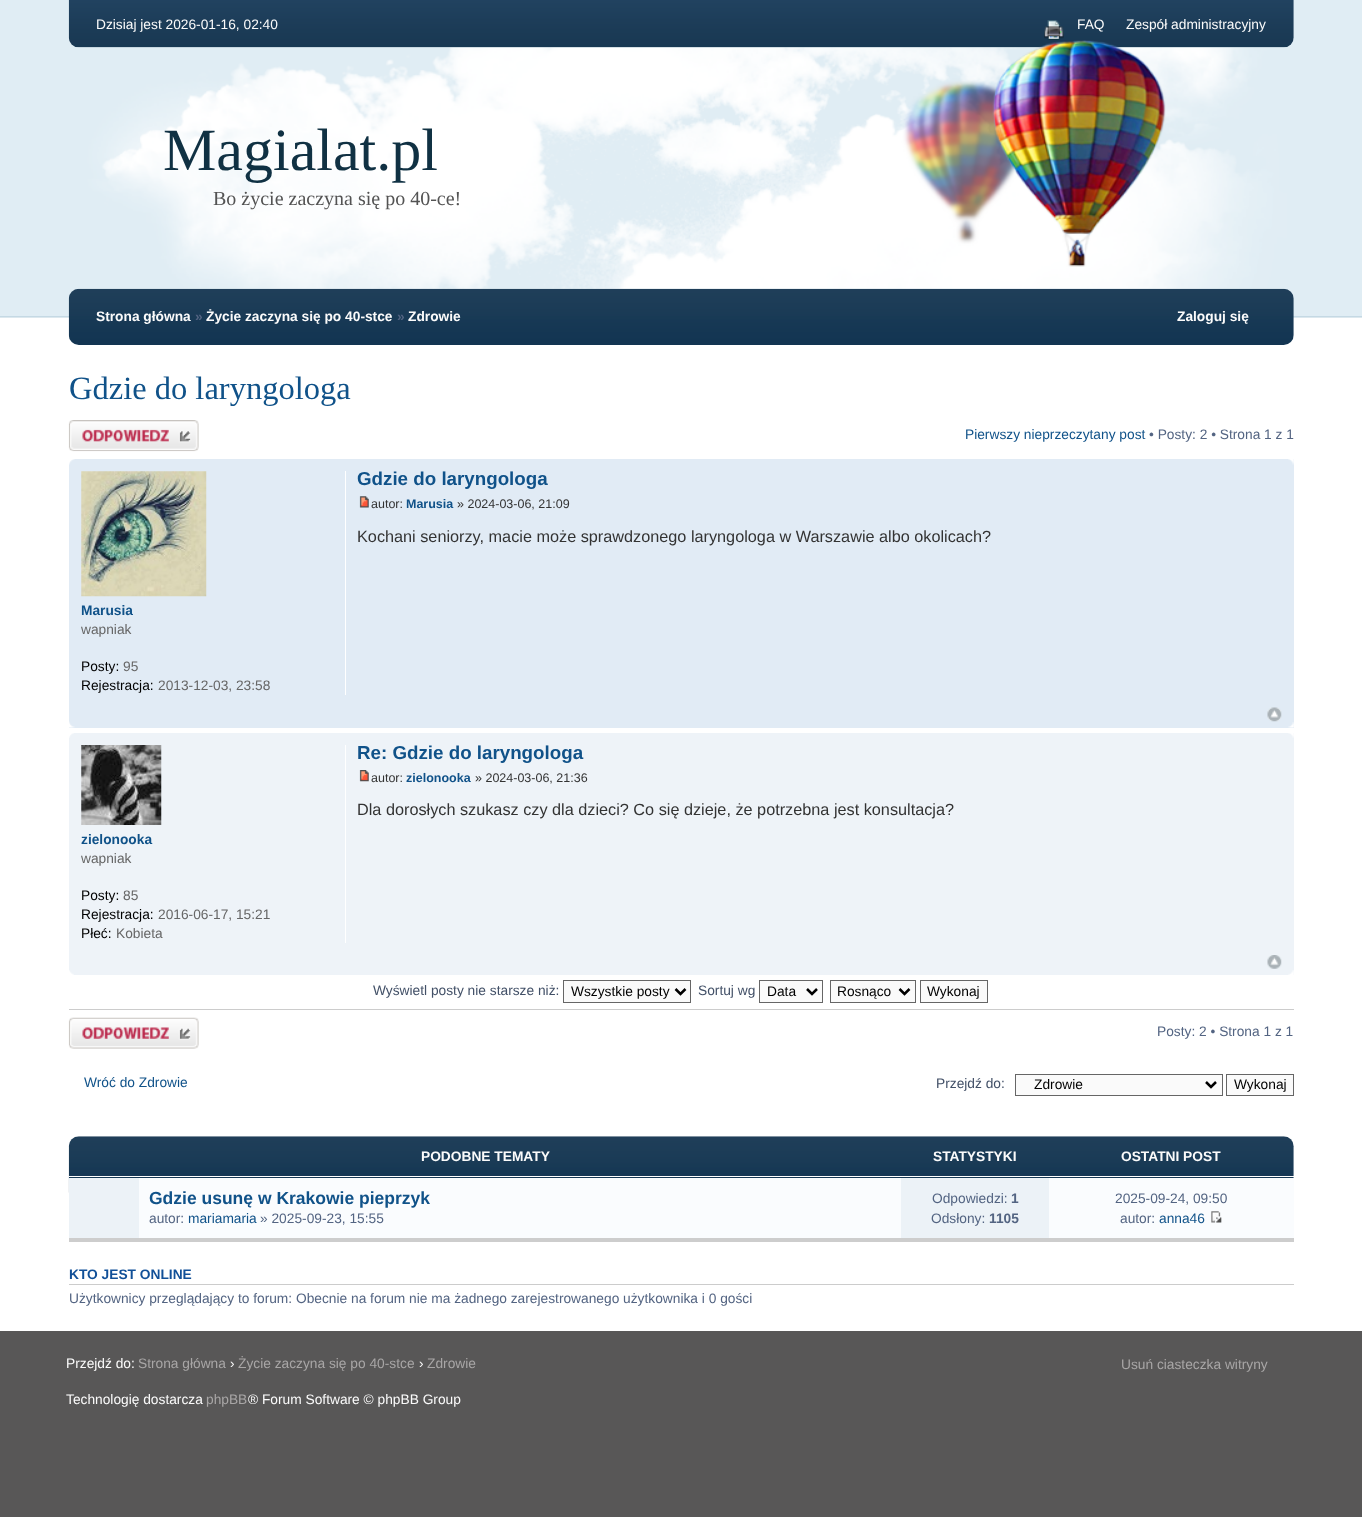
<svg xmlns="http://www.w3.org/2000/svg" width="1362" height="1517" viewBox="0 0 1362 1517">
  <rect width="100%" height="100%" fill="#ffffff"/>
  <image x="0" y="0" width="1362" height="318" href="img1.png"/>
  <image x="68" y="0" width="1226" height="48" href="img2.png"/>
  <text x="96" y="29" font-family="Liberation Sans" font-size="13.75" fill="#fbfbfb">Dzisiaj jest 2026-01-16, 02:40</text>
  <image x="1044" y="20" width="20" height="20" href="img3.png"/>
  <text x="1077" y="29" font-family="Liberation Sans" font-size="13.75" fill="#fbfbfb">FAQ</text>
  <text x="1126" y="29" font-family="Liberation Sans" font-size="13.75" fill="#fbfbfb">Zespół administracyjny</text>
  <image x="76" y="40" width="1211" height="249" href="img4.png"/>
  <text x="163" y="170" font-family="Liberation Serif" font-size="60" fill="#103143">Magialat.pl</text>
  <text x="213" y="205" font-family="Liberation Serif" font-size="20" fill="#535353">Bo życie zaczyna się po 40-ce!</text>
  <image x="68" y="288" width="1226" height="57" href="img5.png"/>
  <text x="96" y="321" font-family="Liberation Sans" font-size="13.75" font-weight="bold" fill="#fbfbfb">Strona główna</text>
  <text x="195" y="321" font-family="Liberation Sans" font-size="13.75" font-weight="bold" fill="#536482">»</text>
  <text x="206" y="321" font-family="Liberation Sans" font-size="13.75" font-weight="bold" fill="#fbfbfb">Życie zaczyna się po 40-stce</text>
  <text x="397" y="321" font-family="Liberation Sans" font-size="13.75" font-weight="bold" fill="#536482">»</text>
  <text x="408" y="321" font-family="Liberation Sans" font-size="13.75" font-weight="bold" fill="#fbfbfb">Zdrowie</text>
  <text x="1177" y="321" font-family="Liberation Sans" font-size="13.75" font-weight="bold" fill="#fbfbfb">Zaloguj się</text>
  <text x="69" y="399" font-family="Liberation Serif" font-size="32.5" fill="#105289">Gdzie do laryngologa</text>
  <image x="68" y="420" width="131" height="32" href="img6.png"/>
  <text x="965" y="439" font-family="Liberation Sans" font-size="13.75" fill="#105289">Pierwszy nieprzeczytany post</text>
  <text x="1149" y="439" font-family="Liberation Sans" font-size="13.75" fill="#536482">• Posty: 2 • Strona 1 z 1</text>
  <rect x="69" y="459" width="1225" height="269" fill="#e1ebf5"/>
  <image x="69" y="459" width="6" height="6" href="img7.png"/>
  <image x="1288" y="459" width="6" height="6" href="img8.png"/>
  <text x="357" y="485" font-family="Liberation Sans" font-size="18.75" font-weight="bold" fill="#105289">Gdzie do laryngologa</text>
  <image x="359" y="496" width="10" height="12" href="img9.png"/>
  <text x="371" y="508" font-family="Liberation Sans" font-size="12.5" fill="#333333">autor:</text>
  <text x="406" y="508" font-family="Liberation Sans" font-size="12.5" font-weight="bold" fill="#105289">Marusia</text>
  <text x="457" y="508" font-family="Liberation Sans" font-size="12.5" fill="#333333">» 2024-03-06, 21:09</text>
  <text x="357" y="542" font-family="Liberation Sans" font-size="16.25" fill="#333333">Kochani seniorzy, macie może sprawdzonego laryngologa w Warszawie albo okolicach?</text>
  <rect x="345" y="471" width="1" height="224" fill="#ffffff"/>
  <image x="81" y="471" width="126" height="126" href="img10.png"/>
  <text x="81" y="615" font-family="Liberation Sans" font-size="13.75" font-weight="bold" fill="#105289">Marusia</text>
  <text x="81" y="634" font-family="Liberation Sans" font-size="13.75" fill="#666666">wapniak</text>
  <text x="81" y="671" font-family="Liberation Sans" font-size="13.75" fill="#000000">Posty:</text>
  <text x="123" y="671" font-family="Liberation Sans" font-size="13.75" fill="#666666">95</text>
  <text x="81" y="690" font-family="Liberation Sans" font-size="13.75" fill="#000000">Rejestracja:</text>
  <text x="158" y="690" font-family="Liberation Sans" font-size="13.75" fill="#666666">2013-12-03, 23:58</text>
  <image x="1267" y="707" width="15" height="15" href="img11.png"/>
  <image x="69" y="721" width="6" height="7" href="img12.png"/>
  <image x="1288" y="722" width="6" height="6" href="img13.png"/>
  <rect x="69" y="733" width="1225" height="242" fill="#eef3f8"/>
  <image x="69" y="733" width="5" height="5" href="img14.png"/>
  <image x="1288" y="733" width="6" height="5" href="img15.png"/>
  <text x="357" y="759" font-family="Liberation Sans" font-size="18.75" font-weight="bold" fill="#105289">Re: Gdzie do laryngologa</text>
  <image x="359" y="770" width="10" height="12" href="img16.png"/>
  <text x="371" y="782" font-family="Liberation Sans" font-size="12.5" fill="#333333">autor:</text>
  <text x="406" y="782" font-family="Liberation Sans" font-size="12.5" font-weight="bold" fill="#105289">zielonooka</text>
  <text x="475" y="782" font-family="Liberation Sans" font-size="12.5" fill="#333333">» 2024-03-06, 21:36</text>
  <text x="357" y="815" font-family="Liberation Sans" font-size="16.25" fill="#333333">Dla dorosłych szukasz czy dla dzieci? Co się dzieje, że potrzebna jest konsultacja?</text>
  <rect x="345" y="745" width="1" height="198" fill="#ffffff"/>
  <image x="81" y="745" width="81" height="80" href="img17.png"/>
  <text x="81" y="844" font-family="Liberation Sans" font-size="13.75" font-weight="bold" fill="#105289">zielonooka</text>
  <text x="81" y="863" font-family="Liberation Sans" font-size="13.75" fill="#666666">wapniak</text>
  <text x="81" y="900" font-family="Liberation Sans" font-size="13.75" fill="#000000">Posty:</text>
  <text x="123" y="900" font-family="Liberation Sans" font-size="13.75" fill="#666666">85</text>
  <text x="81" y="919" font-family="Liberation Sans" font-size="13.75" fill="#000000">Rejestracja:</text>
  <text x="158" y="919" font-family="Liberation Sans" font-size="13.75" fill="#666666">2016-06-17, 15:21</text>
  <text x="81" y="938" font-family="Liberation Sans" font-size="13.75" fill="#000000">Płeć:</text>
  <text x="116" y="938" font-family="Liberation Sans" font-size="13.75" fill="#666666">Kobieta</text>
  <image x="1267" y="955" width="15" height="14" href="img18.png"/>
  <image x="69" y="970" width="5" height="5" href="img19.png"/>
  <image x="1288" y="970" width="6" height="5" href="img20.png"/>
  <text x="373" y="995" font-family="Liberation Sans" font-size="13.75" fill="#425067">Wyświetl posty nie starsze niż:</text>
  <rect x="563.5" y="980.5" width="127" height="22" fill="#fafafa" stroke="#666666"/>
  <path d="M675.5 989L680.5 994L685.5 989" fill="none" stroke="#000000" stroke-width="2.5"/>
  <text x="571" y="996" font-family="Liberation Sans" font-size="13.75" fill="#000000">Wszystkie posty</text>
  <text x="698" y="995" font-family="Liberation Sans" font-size="13.75" fill="#425067">Sortuj wg</text>
  <rect x="759.5" y="980.5" width="63" height="22" fill="#fafafa" stroke="#666666"/>
  <path d="M807 989L812 994L817 989" fill="none" stroke="#000000" stroke-width="2.5"/>
  <text x="767" y="996" font-family="Liberation Sans" font-size="13.75" fill="#000000">Data</text>
  <rect x="830.5" y="980.5" width="85" height="22" fill="#fafafa" stroke="#666666"/>
  <path d="M899.5 989L904.5 994L909.5 989" fill="none" stroke="#000000" stroke-width="2.5"/>
  <text x="837" y="996" font-family="Liberation Sans" font-size="13.75" fill="#000000">Rosnąco</text>
  <rect x="920.5" y="980.5" width="67" height="22" fill="#fafafa" stroke="#666666"/>
  <text x="927" y="996" font-family="Liberation Sans" font-size="13.75" fill="#000000">Wykonaj</text>
  <rect x="69" y="1009" width="1225" height="1" fill="#cccccc"/>
  <image x="68" y="1017" width="131" height="32" href="img21.png"/>
  <text x="1157" y="1036" font-family="Liberation Sans" font-size="13.75" fill="#536482">Posty: 2 • Strona 1 z 1</text>
  <text x="84" y="1087" font-family="Liberation Sans" font-size="13.75" fill="#105289">Wróć do Zdrowie</text>
  <text x="936" y="1088" font-family="Liberation Sans" font-size="13.75" fill="#425067">Przejdź do:</text>
  <rect x="1015.5" y="1074.5" width="207" height="21" fill="#fafafa" stroke="#666666"/>
  <path d="M1206 1082L1211 1087L1216 1082" fill="none" stroke="#000000" stroke-width="2.5"/>
  <text x="1034" y="1089" font-family="Liberation Sans" font-size="13.75" fill="#000000">Zdrowie</text>
  <rect x="1226.5" y="1074.5" width="67" height="21" fill="#fafafa" stroke="#666666"/>
  <text x="1234" y="1089" font-family="Liberation Sans" font-size="13.75" fill="#000000">Wykonaj</text>
  <image x="68" y="1136" width="1226" height="57" href="img22.png"/>
  <rect x="69" y="1238" width="1225" height="4" fill="#cdcdcd"/>
  <text x="421" y="1161" font-family="Liberation Sans" font-size="13.75" font-weight="bold" fill="#fbfbfb">PODOBNE TEMATY</text>
  <text x="933" y="1161" font-family="Liberation Sans" font-size="13.75" font-weight="bold" fill="#fbfbfb">STATYSTYKI</text>
  <text x="1121" y="1161" font-family="Liberation Sans" font-size="13.75" font-weight="bold" fill="#fbfbfb">OSTATNI POST</text>
  <rect x="139" y="1178" width="1155" height="60" fill="#fafcfe"/>
  <rect x="69" y="1178" width="70" height="60" fill="#ecf2f7"/>
  <text x="149" y="1204" font-family="Liberation Sans" font-size="17.5" font-weight="bold" fill="#105289">Gdzie usunę w Krakowie pieprzyk</text>
  <text x="149" y="1223" font-family="Liberation Sans" font-size="13.75" fill="#536482">autor:</text>
  <text x="188" y="1223" font-family="Liberation Sans" font-size="13.75" fill="#105289">mariamaria</text>
  <text x="260" y="1223" font-family="Liberation Sans" font-size="13.75" fill="#536482">» 2025-09-23, 15:55</text>
  <rect x="901" y="1178" width="148" height="60" fill="#ecf2f7"/>
  <text x="932" y="1203" font-family="Liberation Sans" font-size="13.75" fill="#536482">Odpowiedzi:</text>
  <text x="1011" y="1203" font-family="Liberation Sans" font-size="13.75" font-weight="bold" fill="#536482">1</text>
  <text x="931" y="1223" font-family="Liberation Sans" font-size="13.75" fill="#536482">Odsłony:</text>
  <text x="989" y="1223" font-family="Liberation Sans" font-size="13.75" font-weight="bold" fill="#536482">1105</text>
  <rect x="69" y="1176" width="1226" height="1" fill="#ffffff"/>
  <text x="1115" y="1203" font-family="Liberation Sans" font-size="13.75" fill="#536482">2025-09-24, 09:50</text>
  <text x="1120" y="1223" font-family="Liberation Sans" font-size="13.75" fill="#536482">autor:</text>
  <text x="1159" y="1223" font-family="Liberation Sans" font-size="13.75" fill="#105289">anna46</text>
  <image x="1211" y="1211" width="11" height="12" href="img23.png"/>
  <rect x="69" y="1284" width="1225" height="1" fill="#cccccc"/>
  <text x="69" y="1279" font-family="Liberation Sans" font-size="13.75" font-weight="bold" fill="#115098">KTO JEST ONLINE</text>
  <text x="69" y="1303" font-family="Liberation Sans" font-size="13.75" fill="#536482">Użytkownicy przeglądający to forum: Obecnie na forum nie ma żadnego zarejestrowanego użytkownika i 0 gości</text>
  <rect x="0" y="1331" width="1362" height="186" fill="#585757"/>
  <text x="66" y="1368" font-family="Liberation Sans" font-size="13.75" fill="#fbfbfb">Przejdź do:</text>
  <text x="138" y="1368" font-family="Liberation Sans" font-size="13.75" fill="#a8a6a6">Strona główna</text>
  <text x="230" y="1368" font-family="Liberation Sans" font-size="13.75" fill="#fbfbfb">›</text>
  <text x="238" y="1368" font-family="Liberation Sans" font-size="13.75" fill="#a8a6a6">Życie zaczyna się po 40-stce</text>
  <text x="419" y="1368" font-family="Liberation Sans" font-size="13.75" fill="#fbfbfb">›</text>
  <text x="427" y="1368" font-family="Liberation Sans" font-size="13.75" fill="#a8a6a6">Zdrowie</text>
  <text x="66" y="1404" font-family="Liberation Sans" font-size="13.75" fill="#fbfbfb">Technologię dostarcza</text>
  <text x="206" y="1404" font-family="Liberation Sans" font-size="13.75" fill="#a8a6a6">phpBB</text>
  <text x="248" y="1404" font-family="Liberation Sans" font-size="13.75" fill="#fbfbfb">® Forum Software © phpBB Group</text>
  <text x="1121" y="1369" font-family="Liberation Sans" font-size="13.75" fill="#a8a6a6">Usuń ciasteczka witryny</text>
</svg>
